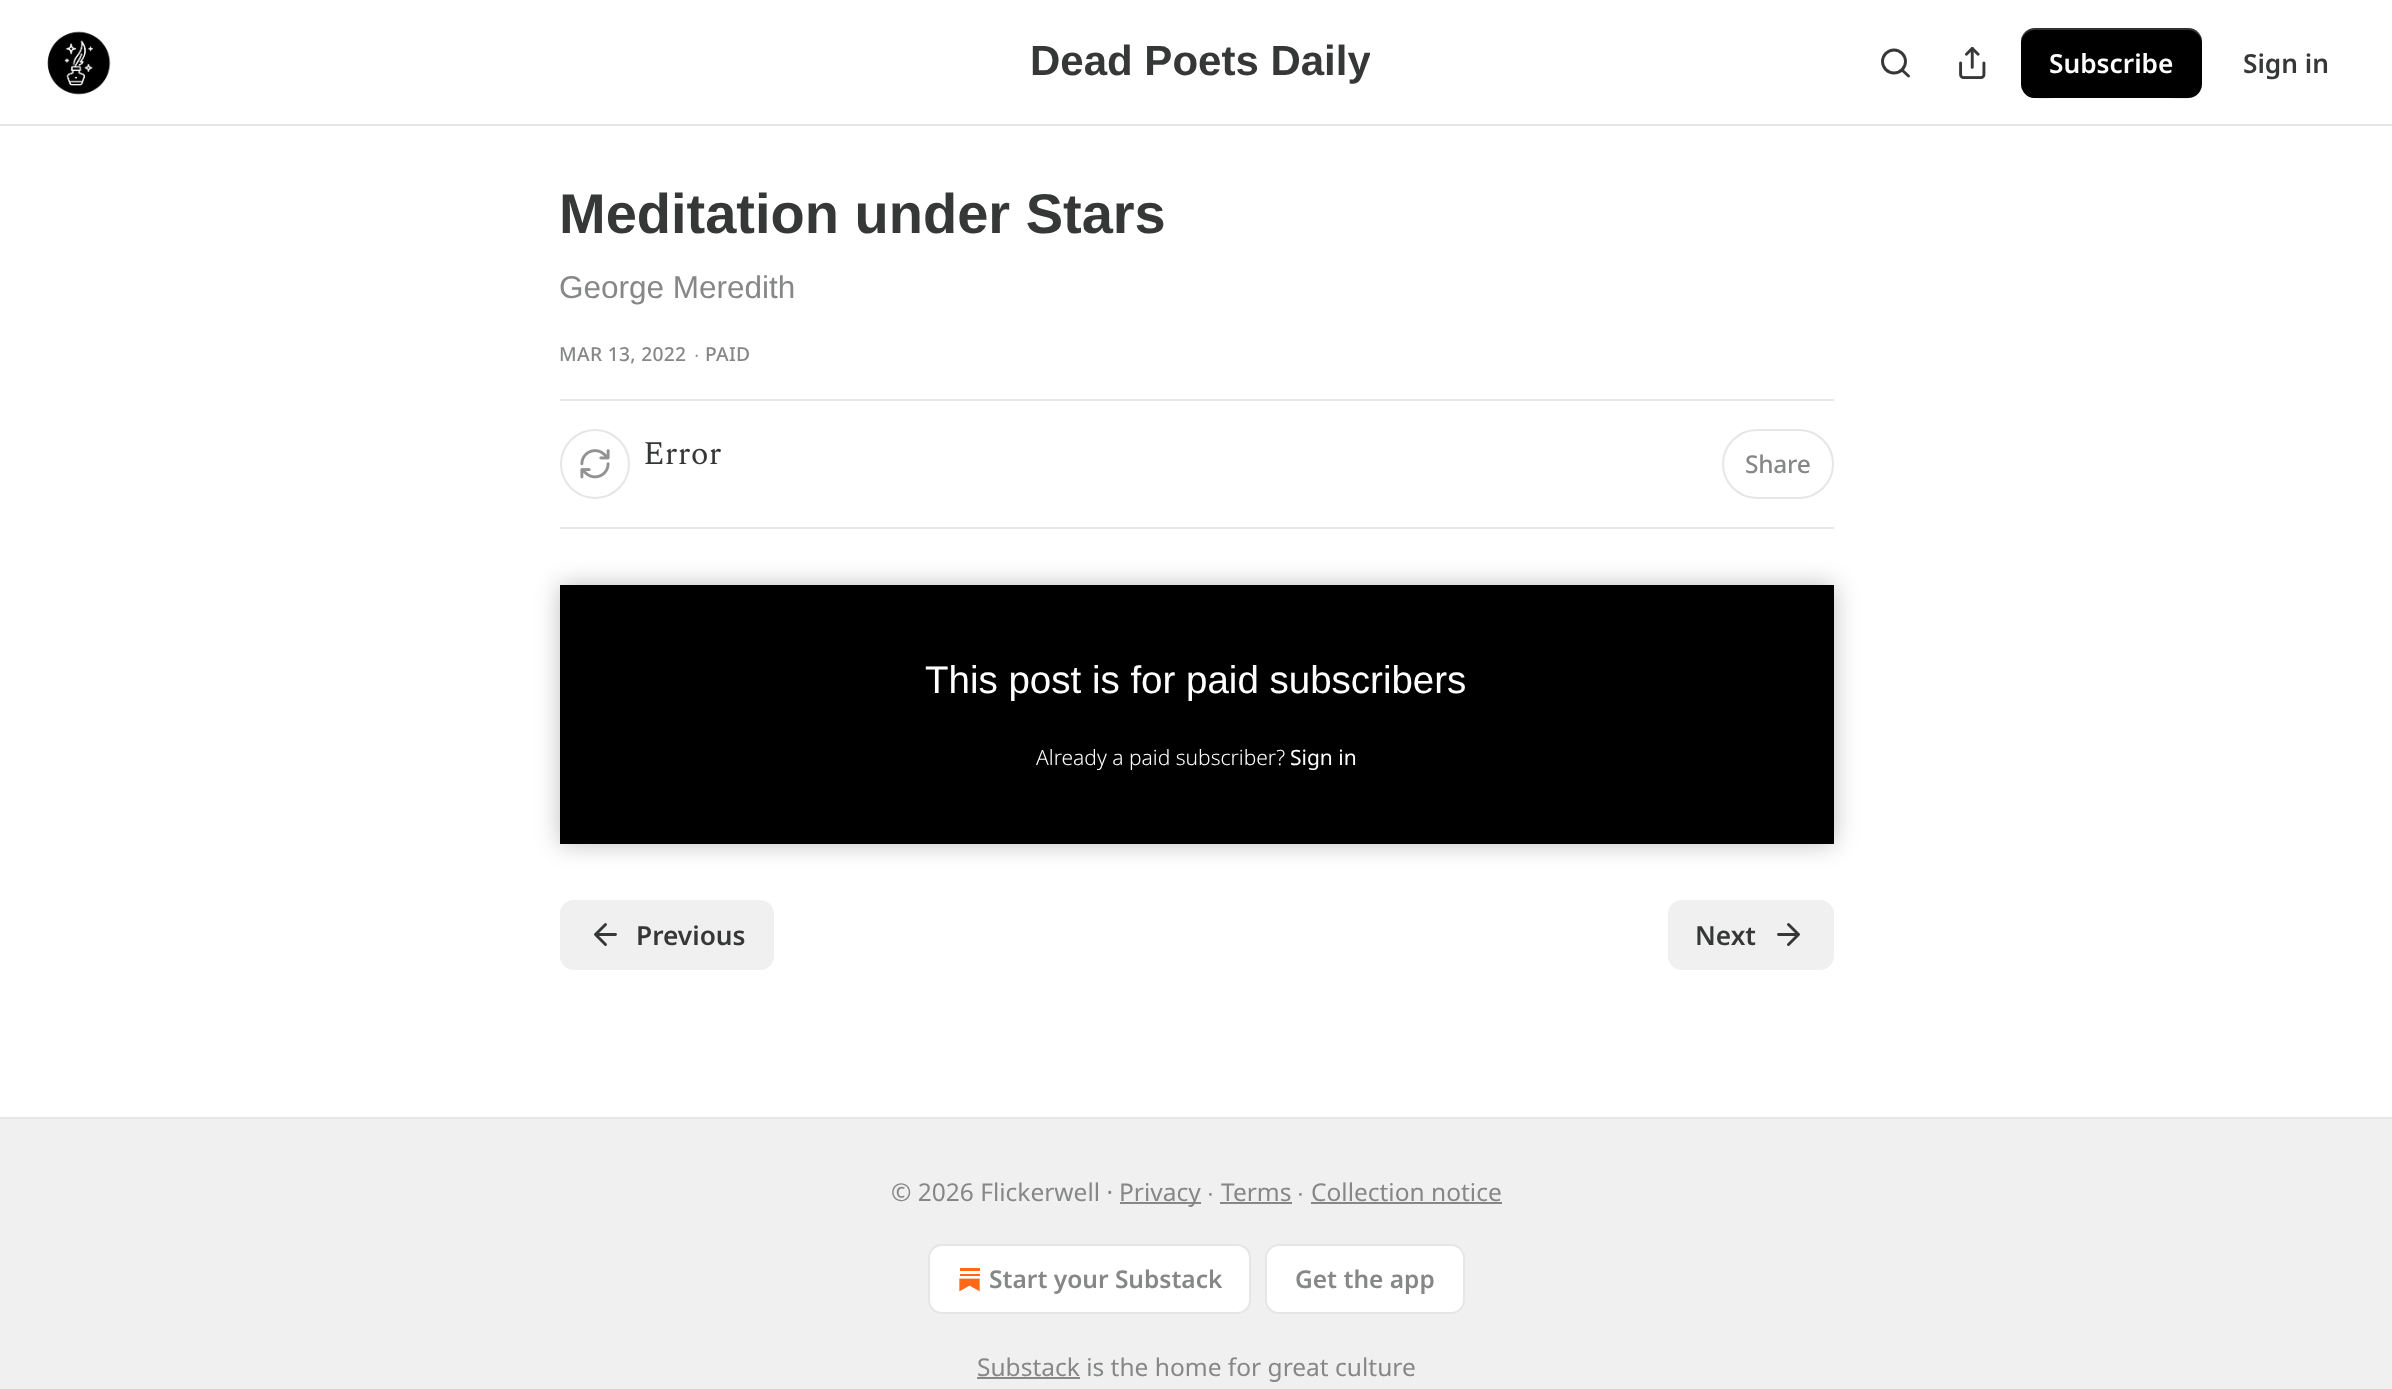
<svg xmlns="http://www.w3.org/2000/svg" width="2392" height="1389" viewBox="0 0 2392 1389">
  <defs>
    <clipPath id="clip1"><rect x="1031" y="33" width="339" height="58"/></clipPath>
    <clipPath id="clip2"><path d="M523 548H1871V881H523ZM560 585H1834V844H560Z" clip-rule="evenodd"/></clipPath>
    <filter id="blur1" x="-50%" y="-200%" width="200%" height="500%"><feGaussianBlur stdDeviation="12"/></filter>
  </defs>
  <rect width="100%" height="100%" fill="#ffffff"/>
  <rect x="0" y="124" width="2392" height="2" fill="#e6e6e6"/>
  <image x="47" y="31" width="64" height="64" href="img1.png"/>
  <g clip-path="url(#clip1)">
    <text x="1030" y="75" font-family="Liberation Sans" font-size="42" font-weight="bold" fill="#363737">Dead Poets Daily</text>
  </g>
  <circle cx="1894" cy="61.5" r="11.5" fill="none" stroke="#363737" stroke-width="2.9"/>
  <path d="M1908.5 76L1902 70" fill="none" stroke="#363737" stroke-width="2.9" stroke-linecap="round" stroke-linejoin="round"/>
  <image x="1959" y="47" width="27" height="32" href="img2.png"/>
  <rect x="2021" y="28" width="181" height="70" rx="14" fill="#000000"/>
  <path d="M2021 82C2021 104 2046 98 2060 98H2162C2177 98 2202 104 2202 82C2202 90 2195 96 2188 96H2035C2028 96 2021 90 2021 82Z" fill="#000000" fill-opacity="0.1"/>
  <path d="M2035 30H2188C2195 30 2202 36 2202 44C2202 22 2177 28 2162 28H2060C2046 28 2021 22 2021 44C2021 36 2028 30 2035 30Z" fill="#ffffff" fill-opacity="0.2"/>
  <text x="2049" y="73" font-family="Noto Sans" font-size="26.25" font-weight="600" fill="#ffffff">Subscribe</text>
  <text x="2243" y="73" font-family="Noto Sans" font-size="26.25" font-weight="600" fill="#363737">Sign in</text>
  <text x="559" y="233" font-family="Liberation Sans" font-size="56" font-weight="bold" fill="#363737">Meditation under Stars</text>
  <text x="559" y="298" font-family="Liberation Sans" font-size="31.5" fill="#868787">George Meredith</text>
  <text x="559" y="361" font-family="Noto Sans" font-size="19.25" font-weight="500" letter-spacing="0.3" fill="#868787">MAR 13, 2022</text>
  <text x="694" y="361" font-family="Liberation Sans" font-size="19.25" letter-spacing="0.3" fill="#868787">∙</text>
  <text x="705" y="361" font-family="Noto Sans" font-size="19.25" font-weight="500" letter-spacing="0.3" fill="#868787">PAID</text>
  <rect x="560" y="399" width="1274" height="2" fill="#e6e6e6"/>
  <rect x="560" y="527" width="1274" height="2" fill="#e6e6e6"/>
  <circle cx="595" cy="464" r="34" fill="none" stroke="#e6e6e6" stroke-width="2"/>
  <image x="580" y="449" width="30" height="30" href="img3.png"/>
  <text x="643" y="464" font-family="Spectral" font-size="33" fill="#363737">Error</text>
  <rect x="1723" y="430" width="110" height="68" rx="34" fill="none" stroke="#e6e6e6" stroke-width="2"/>
  <text x="1745" y="473" font-family="Noto Sans" font-size="24.5" font-weight="500" letter-spacing="-0.25" fill="#868787">Share</text>
  <rect x="560" y="585" width="1274" height="259" fill="#000000"/>
  <g clip-path="url(#clip2)">
    <rect x="560" y="585" width="1274" height="259" fill="#000000" fill-opacity="0.25" filter="url(#blur1)"/>
  </g>
  <text x="925" y="693" font-family="Liberation Sans" font-size="38.5" fill="#ffffff">This post is for paid subscribers</text>
  <text x="1036" y="765" font-family="Noto Sans" font-size="21" font-weight="300" fill="#ffffff">Already a paid subscriber?</text>
  <text x="1290" y="765" font-family="Noto Sans" font-size="21" fill="#ffffff">Sign in</text>
  <rect x="560" y="900" width="214" height="70" rx="14" fill="#f0f0f0"/>
  <path d="M605.5 944.5L595.5 934.5L605.5 924.5M615.5 934.5H595.5" fill="none" stroke="#363737" stroke-width="2.9" stroke-linecap="round" stroke-linejoin="round"/>
  <text x="636" y="945" font-family="Noto Sans" font-size="26.25" font-weight="600" fill="#363737">Previous</text>
  <rect x="1668" y="900" width="166" height="70" rx="14" fill="#f0f0f0"/>
  <text x="1695" y="945" font-family="Noto Sans" font-size="26.25" font-weight="600" fill="#363737">Next</text>
  <path d="M1778.5 934.5H1798.5M1788.5 924.5L1798.5 934.5L1788.5 944.5" fill="none" stroke="#363737" stroke-width="2.9" stroke-linecap="round" stroke-linejoin="round"/>
  <rect x="0" y="1119" width="2392" height="270" fill="#f0f0f0"/>
  <rect x="0" y="1117" width="2392" height="2" fill="#e6e6e6"/>
  <text x="891" y="1201" font-family="Noto Sans" font-size="24.5" fill="#868787">© 2026 Flickerwell ·</text>
  <rect x="1120" y="1202" width="81" height="2" fill="#868787"/>
  <text x="1119" y="1201" font-family="Noto Sans" font-size="24.5" fill="#868787">Privacy</text>
  <text x="1207" y="1201" font-family="Liberation Sans" font-size="24.5" fill="#868787">∙</text>
  <text x="1221" y="1201" font-family="Noto Sans" font-size="24.5" fill="#868787">Terms</text>
  <rect x="1220" y="1202" width="72" height="2" fill="#868787"/>
  <text x="1297" y="1201" font-family="Liberation Sans" font-size="24.5" fill="#868787">∙</text>
  <text x="1311" y="1201" font-family="Noto Sans" font-size="24.5" fill="#868787">Collection notice</text>
  <rect x="1311" y="1202" width="191" height="2" fill="#868787"/>
  <rect x="929" y="1245" width="321" height="68" rx="13" fill="#ffffff" stroke="#e6e6e6" stroke-width="2"/>
  <image x="959" y="1268" width="21" height="24" href="img4.png"/>
  <text x="989" y="1288" font-family="Noto Sans" font-size="24.5" font-weight="600" fill="#868787">Start your Substack</text>
  <rect x="1266" y="1245" width="198" height="68" rx="13" fill="#ffffff" stroke="#e6e6e6" stroke-width="2"/>
  <text x="1295" y="1288" font-family="Noto Sans" font-size="24.5" font-weight="600" fill="#868787">Get the app</text>
  <rect x="977" y="1377" width="103" height="2" fill="#868787"/>
  <text x="977" y="1376" font-family="Noto Sans" font-size="24.5" fill="#868787">Substack is the home for great culture</text>
</svg>
